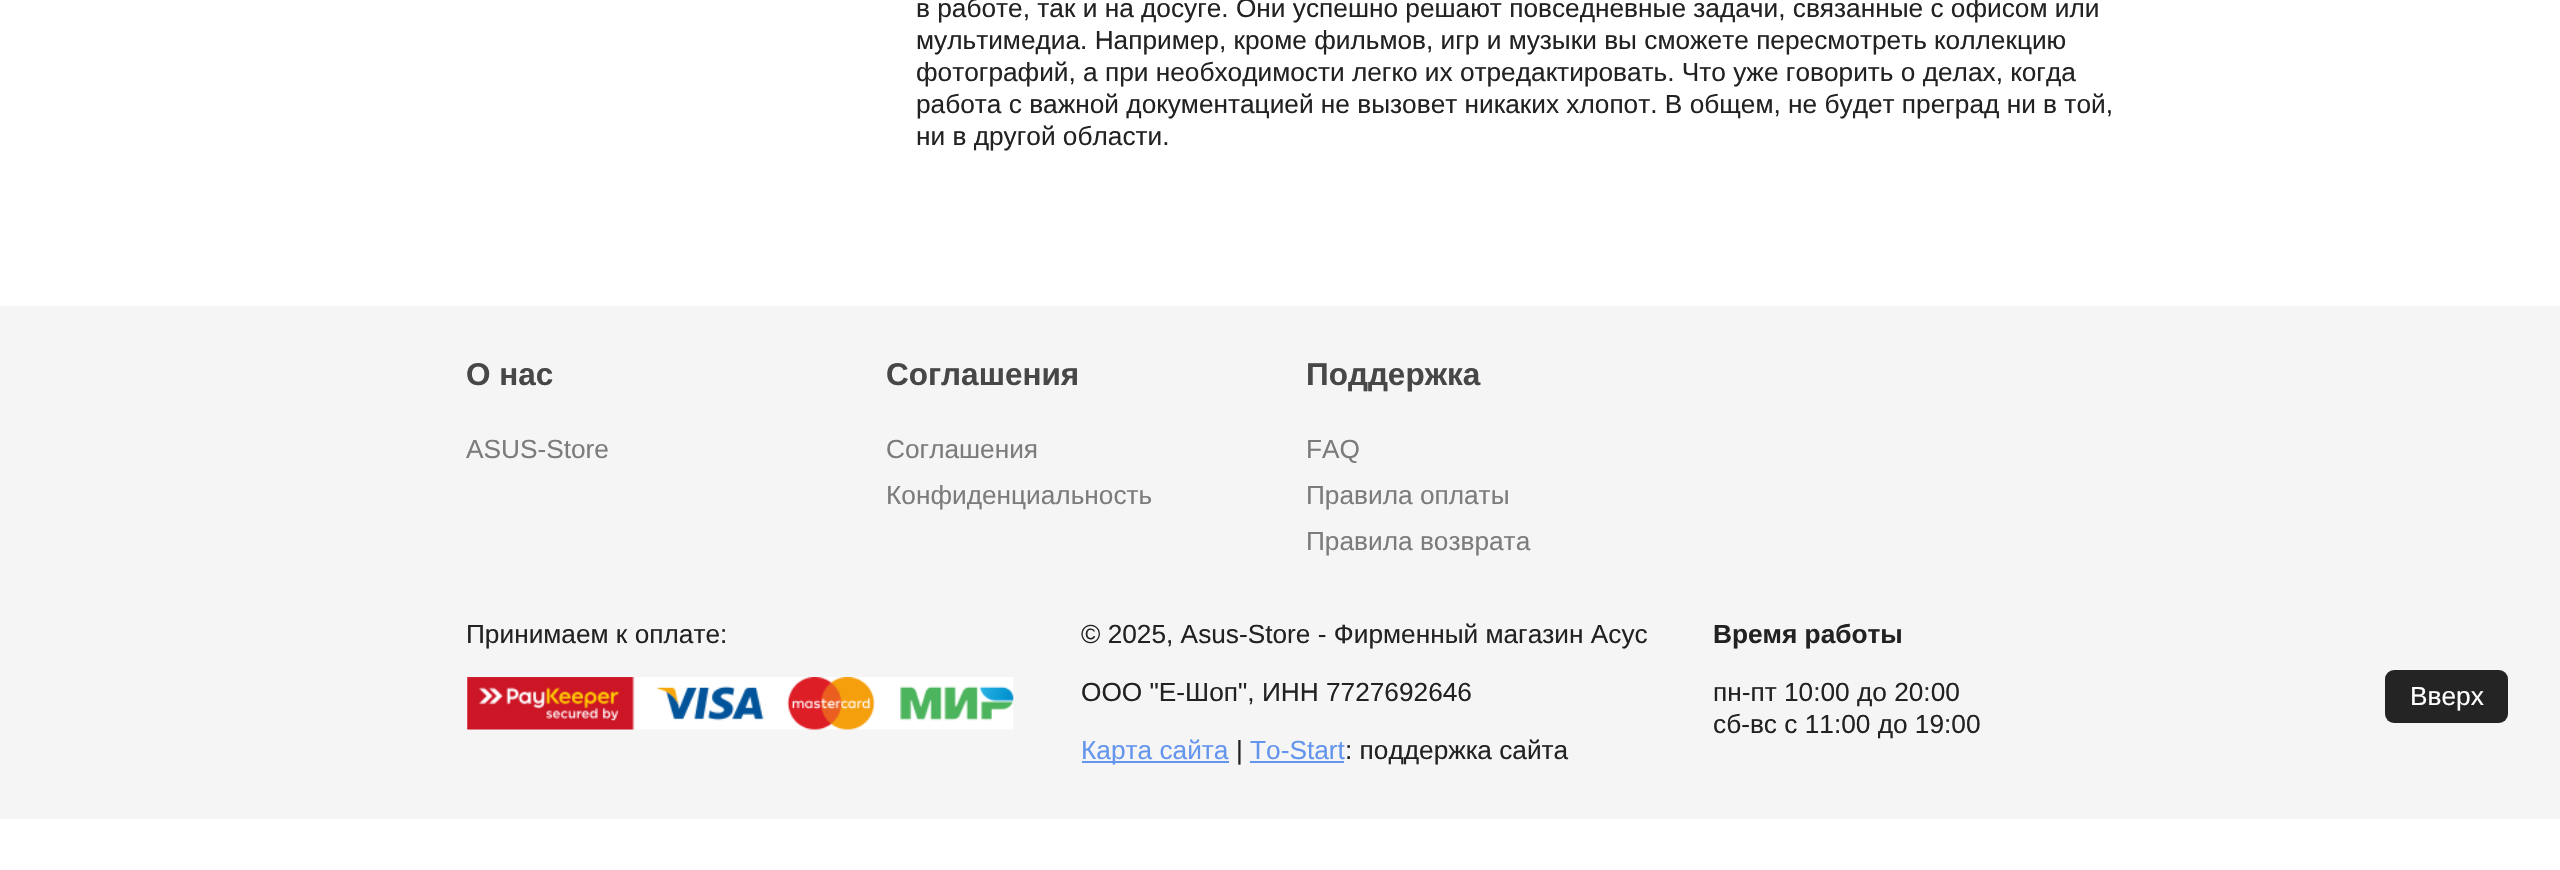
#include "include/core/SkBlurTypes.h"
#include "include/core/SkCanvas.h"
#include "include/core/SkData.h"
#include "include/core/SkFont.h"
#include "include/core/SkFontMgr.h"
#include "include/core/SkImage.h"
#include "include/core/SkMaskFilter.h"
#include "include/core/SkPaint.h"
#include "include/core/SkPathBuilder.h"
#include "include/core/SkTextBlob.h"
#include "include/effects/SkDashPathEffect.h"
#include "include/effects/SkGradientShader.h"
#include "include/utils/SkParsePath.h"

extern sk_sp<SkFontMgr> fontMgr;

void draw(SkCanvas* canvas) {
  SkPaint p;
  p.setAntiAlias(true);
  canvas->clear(SK_ColorWHITE);
  p.setColor(SkColorSetRGB(245, 245, 245));
  canvas->drawRect(SkRect::MakeLTRB(0, 306, 2560, 819), p);
  canvas->drawImageRect(SkImages::DeferredFromEncodedData(SkData::MakeFromFileName("images/1.png")), SkRect::MakeLTRB(467, 677, 1014, 730), SkSamplingOptions());
  p.setColor(SkColorSetRGB(100, 149, 237));
  canvas->drawRect(SkRect::MakeLTRB(1082, 761, 1229, 763), p);
  canvas->drawRect(SkRect::MakeLTRB(1250, 761, 1344, 763), p);
  p.setColor(SkColorSetRGB(36, 36, 36));
  canvas->drawRoundRect(SkRect::MakeLTRB(2385, 670, 2508, 723), 9, 9, p);
  SkFont font1(fontMgr->matchFamilyStyle("Liberation Sans", SkFontStyle::Normal()), 26.25f);
  font1.setSubpixel(true);
  p.setColor(SkColorSetRGB(34, 34, 34));
  canvas->drawString("в работе, так и на досуге. Они успешно решают повседневные задачи, связанные с офисом или", 916, 17, font1, p);
  canvas->drawString("мультимедиа. Например, кроме фильмов, игр и музыки вы сможете пересмотреть коллекцию", 916, 49, font1, p);
  canvas->drawString("фотографий, а при необходимости легко их отредактировать. Что уже говорить о делах, когда", 916, 81, font1, p);
  canvas->drawString("работа с важной документацией не вызовет никаких хлопот. В общем, не будет преград ни в той,", 916, 113, font1, p);
  canvas->drawString("ни в другой области.", 916, 145, font1, p);
  SkFont font2(fontMgr->matchFamilyStyle("Liberation Sans", SkFontStyle::Bold()), 31.5f);
  font2.setSubpixel(true);
  p.setColor(SkColorSetRGB(71, 71, 71));
  canvas->drawString("О нас", 466, 385, font2, p);
  p.setColor(SkColorSetRGB(124, 124, 124));
  canvas->drawString("ASUS-Store", 466, 458, font1, p);
  p.setColor(SkColorSetRGB(71, 71, 71));
  canvas->drawString("Соглашения", 886, 385, font2, p);
  p.setColor(SkColorSetRGB(124, 124, 124));
  canvas->drawString("Соглашения", 886, 458, font1, p);
  canvas->drawString("Конфиденциальность", 886, 504, font1, p);
  p.setColor(SkColorSetRGB(71, 71, 71));
  canvas->drawString("Поддержка", 1306, 385, font2, p);
  p.setColor(SkColorSetRGB(124, 124, 124));
  canvas->drawString("FAQ", 1306, 458, font1, p);
  canvas->drawString("Правила оплаты", 1306, 504, font1, p);
  canvas->drawString("Правила возврата", 1306, 550, font1, p);
  p.setColor(SkColorSetRGB(34, 34, 34));
  canvas->drawString("Принимаем к оплате:", 466, 643, font1, p);
  canvas->drawString("© 2025, Asus-Store - Фирменный магазин Асус", 1081, 643, font1, p);
  canvas->drawString("ООО \"Е-Шоп\", ИНН 7727692646", 1081, 701, font1, p);
  p.setColor(SkColorSetRGB(100, 149, 237));
  canvas->drawString("Карта сайта", 1081, 759, font1, p);
  p.setColor(SkColorSetRGB(34, 34, 34));
  canvas->drawString("|", 1236, 759, font1, p);
  p.setColor(SkColorSetRGB(100, 149, 237));
  canvas->drawString("To-Start", 1250, 759, font1, p);
  p.setColor(SkColorSetRGB(34, 34, 34));
  canvas->drawString(": поддержка сайта", 1345, 759, font1, p);
  SkFont font3(fontMgr->matchFamilyStyle("Liberation Sans", SkFontStyle::Bold()), 26.25f);
  font3.setSubpixel(true);
  canvas->drawString("Время работы", 1713, 643, font3, p);
  canvas->drawString("пн-пт 10:00 до 20:00", 1713, 701, font1, p);
  canvas->drawString("сб-вс с 11:00 до 19:00", 1713, 733, font1, p);
  p.setColor(SK_ColorWHITE);
  canvas->drawString("Вверх", 2410, 705, font1, p);
}
